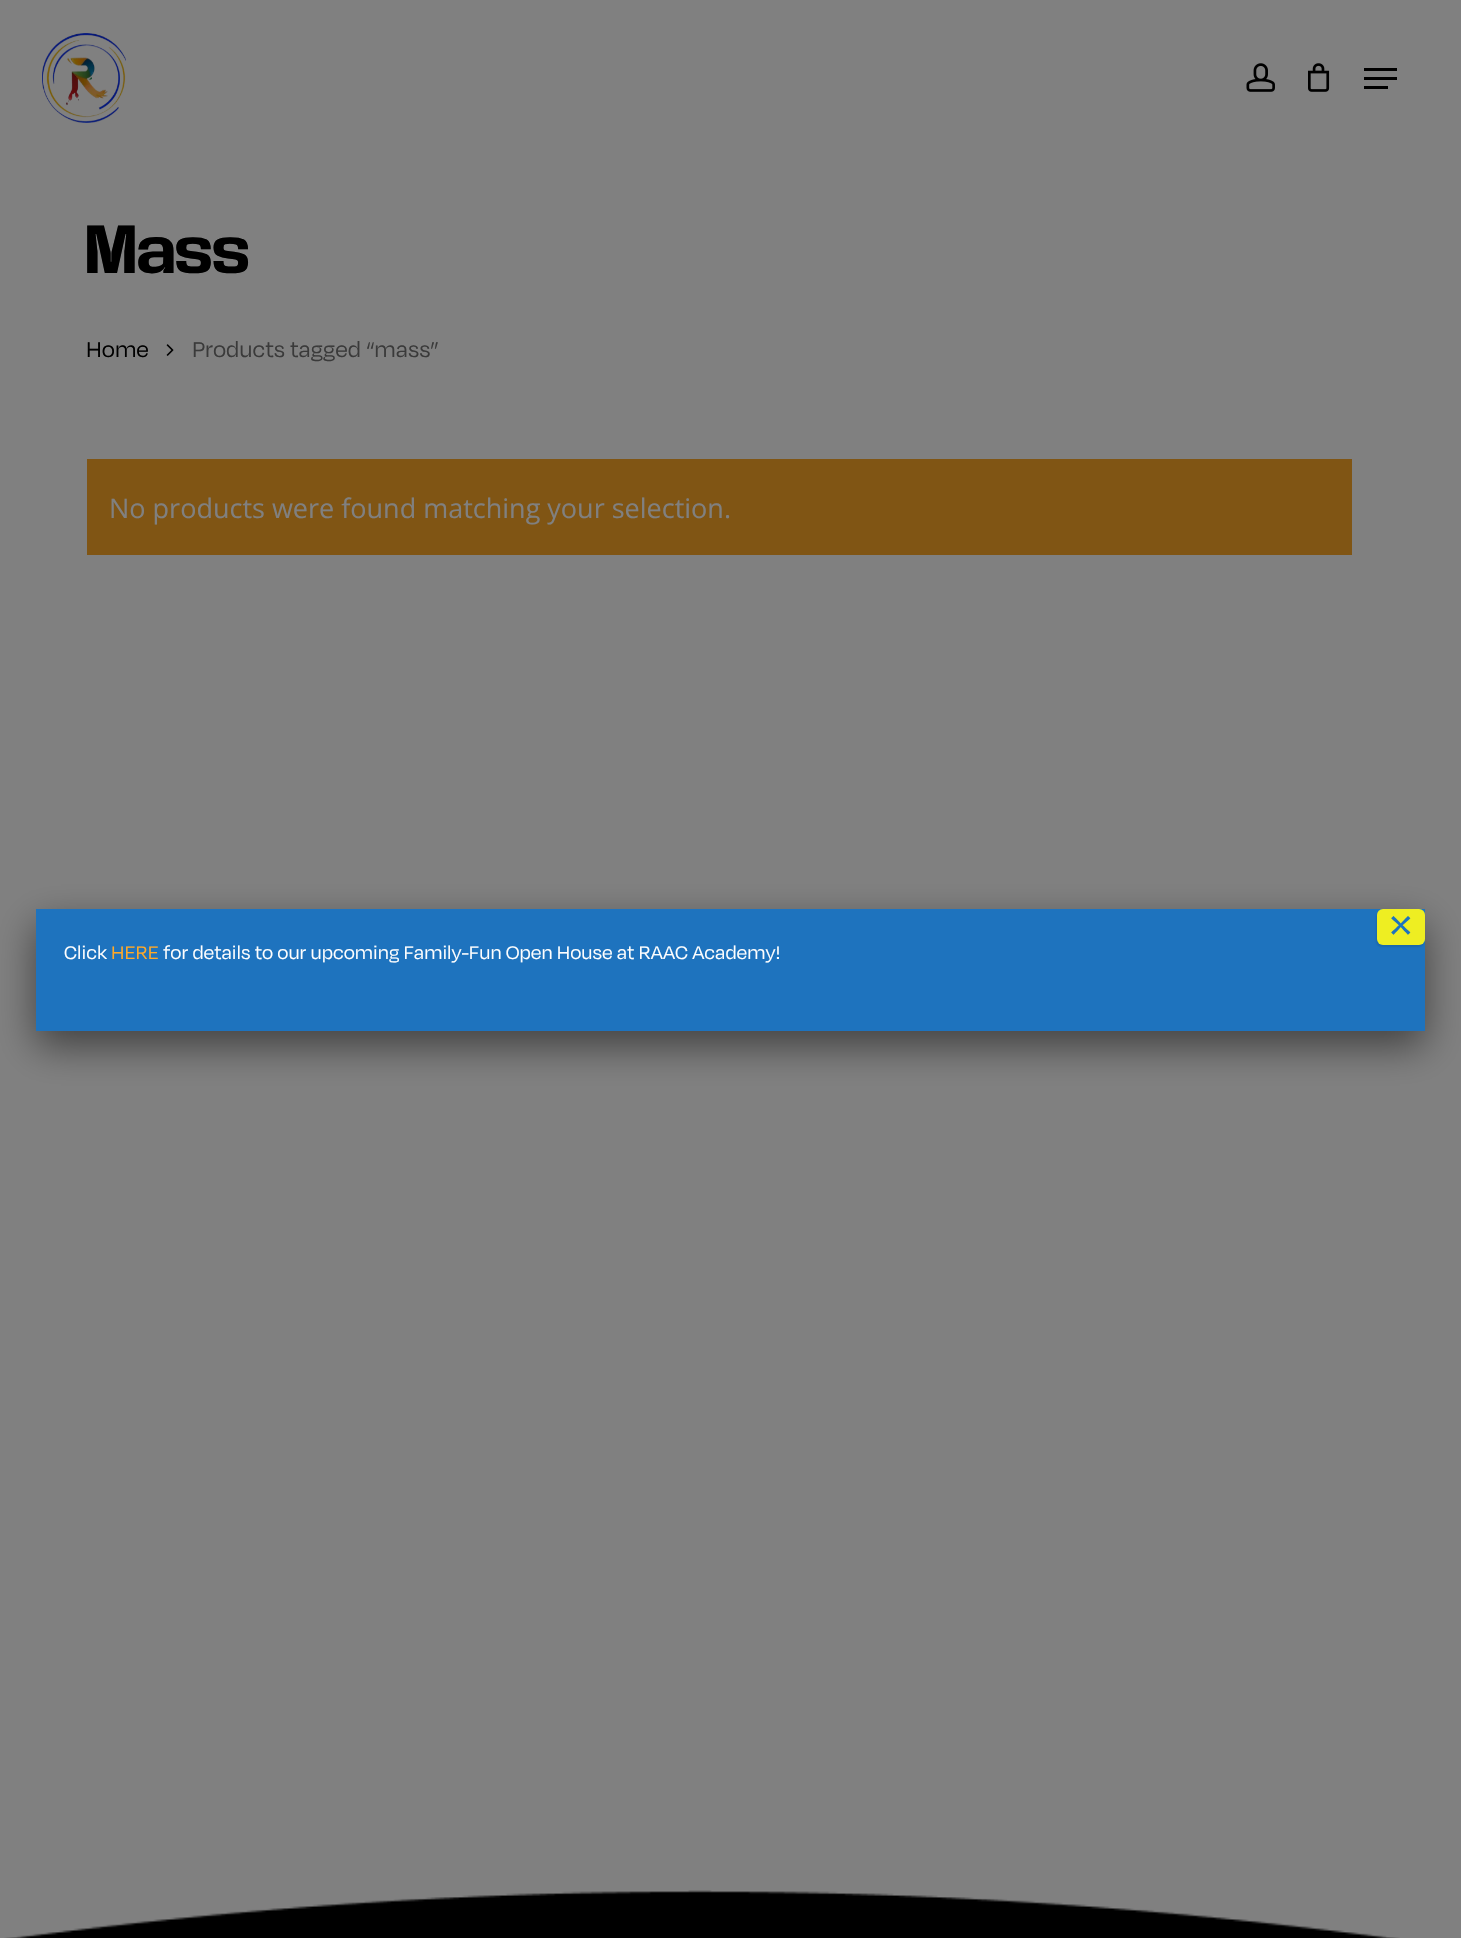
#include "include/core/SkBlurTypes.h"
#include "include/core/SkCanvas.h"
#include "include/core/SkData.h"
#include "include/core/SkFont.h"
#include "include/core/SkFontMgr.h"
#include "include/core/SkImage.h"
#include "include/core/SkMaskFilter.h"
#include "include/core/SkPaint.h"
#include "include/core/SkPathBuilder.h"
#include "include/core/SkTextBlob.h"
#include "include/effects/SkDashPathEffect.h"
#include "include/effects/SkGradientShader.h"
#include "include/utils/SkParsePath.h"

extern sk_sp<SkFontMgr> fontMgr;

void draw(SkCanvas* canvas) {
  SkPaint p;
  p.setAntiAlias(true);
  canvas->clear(SkColorSetRGB(128, 128, 128));
  canvas->drawImageRect(SkImages::DeferredFromEncodedData(SkData::MakeFromFileName("images/1.png")), SkRect::MakeLTRB(42, 33, 126, 123), SkSamplingOptions());
  canvas->drawImageRect(SkImages::DeferredFromEncodedData(SkData::MakeFromFileName("images/2.png")), SkRect::MakeLTRB(1246, 63, 1275, 92), SkSamplingOptions());
  canvas->drawImageRect(SkImages::DeferredFromEncodedData(SkData::MakeFromFileName("images/3.png")), SkRect::MakeLTRB(1308, 63, 1330, 92), SkSamplingOptions());
  p.setColor(SK_ColorBLACK);
  canvas->drawRect(SkRect::MakeLTRB(1364, 68, 1397, 71), p);
  canvas->drawRect(SkRect::MakeLTRB(1364, 86, 1388, 89), p);
  canvas->drawRect(SkRect::MakeLTRB(1364, 77, 1397, 80), p);
  canvas->drawImageRect(SkImages::DeferredFromEncodedData(SkData::MakeFromFileName("images/4.png")), SkRect::MakeLTRB(166, 344, 174, 356), SkSamplingOptions());
  p.setColor(SkColorSetRGB(128, 85, 20));
  canvas->drawRect(SkRect::MakeLTRB(87, 459, 1352, 555), p);
  canvas->drawImageRect(SkImages::DeferredFromEncodedData(SkData::MakeFromFileName("images/5.png")), SkRect::MakeLTRB(4, 1890, 1400, 1938), SkSamplingOptions());
  p.setColor(SkColorSetARGB(128, 2, 2, 2));
  p.setMaskFilter(SkMaskFilter::MakeBlur(kNormal_SkBlurStyle, 19));
  canvas->drawRect(SkRect::MakeLTRB(36, 924, 1425, 1046), p);
  p.setMaskFilter(nullptr);
  p.setColor(SkColorSetRGB(30, 115, 190));
  canvas->drawRect(SkRect::MakeLTRB(36, 909, 1425, 1031), p);
  p.setColor(SkColorSetARGB(26, 2, 2, 2));
  p.setMaskFilter(SkMaskFilter::MakeBlur(kNormal_SkBlurStyle, 1));
  canvas->drawRoundRect(SkRect::MakeLTRB(1376, 911, 1424, 947), 6, 6, p);
  p.setMaskFilter(nullptr);
  p.setColor(SkColorSetRGB(238, 238, 34));
  canvas->drawRoundRect(SkRect::MakeLTRB(1377, 909, 1425, 945), 6, 6, p);
  SkFont font1(fontMgr->matchFamilyStyle("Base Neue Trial", SkFontStyle::Bold()), 60);
  font1.setSubpixel(true);
  p.setColor(SK_ColorBLACK);
  canvas->drawString("Mass", 86, 273, font1, p);
  SkFont font2(fontMgr->matchFamilyStyle("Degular", SkFontStyle::Normal()), 24.75f);
  font2.setSubpixel(true);
  canvas->drawString("Home", 86, 357, font2, p);
  p.setColor(SkColorSetRGB(58, 58, 58));
  canvas->drawString("Products tagged “mass”", 192, 357, font2, p);
  SkFont font3(fontMgr->matchFamilyStyle("Open Sans", SkFontStyle::Normal()), 27);
  font3.setSubpixel(true);
  p.setColor(SkColorSetRGB(128, 128, 128));
  canvas->drawString("No products were found matching your selection.", 109, 518, font3, p);
  SkFont font4(fontMgr->matchFamilyStyle("Degular", SkFontStyle::Normal()), 48);
  font4.setSubpixel(true);
  p.setColor(SkColorSetRGB(30, 115, 190));
  canvas->drawString("×", 1389, 940, font4, p);
  SkFont font5(fontMgr->matchFamilyStyle("Degular", SkFontStyle::Normal()), 21);
  font5.setSubpixel(true);
  p.setColor(SK_ColorWHITE);
  canvas->drawString("Click", 64, 959, font5, p);
  p.setColor(SkColorSetRGB(255, 169, 40));
  canvas->drawString("HERE", 111, 959, font5, p);
  p.setColor(SK_ColorWHITE);
  canvas->drawString("for details to our upcoming Family-Fun Open House at RAAC Academy!", 163, 959, font5, p);
}
